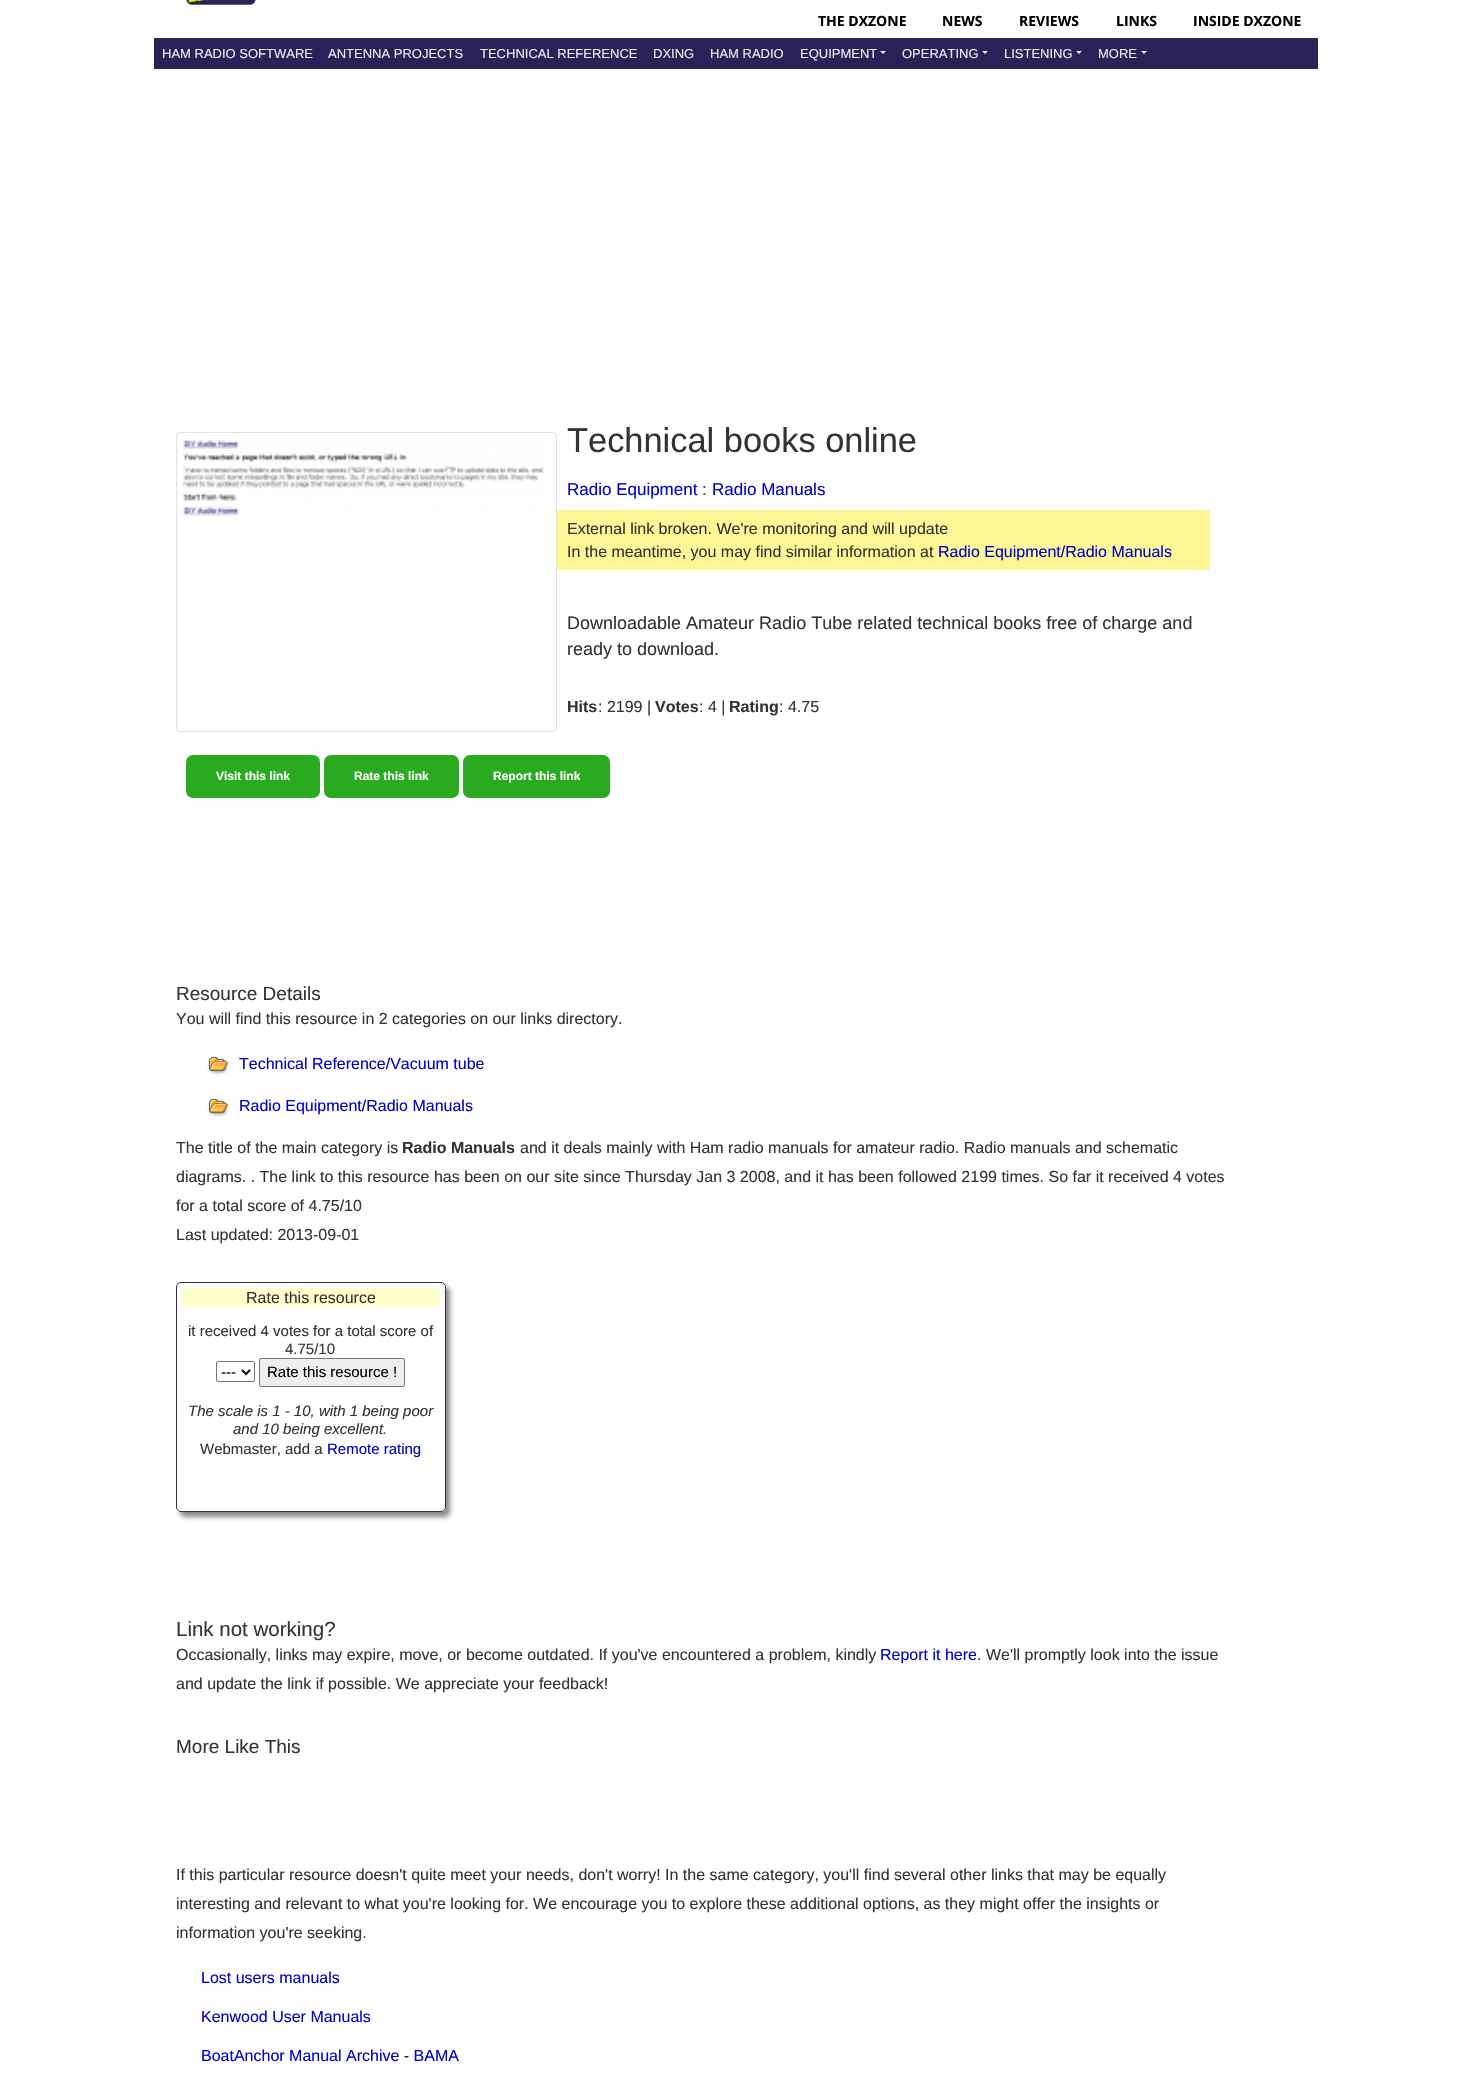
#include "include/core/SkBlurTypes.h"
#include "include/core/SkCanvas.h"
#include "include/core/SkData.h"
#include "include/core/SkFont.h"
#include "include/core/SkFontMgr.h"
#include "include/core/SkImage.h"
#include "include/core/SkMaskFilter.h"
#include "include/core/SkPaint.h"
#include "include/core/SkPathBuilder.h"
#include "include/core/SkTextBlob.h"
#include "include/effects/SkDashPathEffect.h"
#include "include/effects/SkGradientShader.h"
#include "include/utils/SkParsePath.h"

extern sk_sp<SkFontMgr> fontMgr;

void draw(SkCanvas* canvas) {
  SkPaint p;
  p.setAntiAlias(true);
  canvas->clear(SK_ColorWHITE);
  canvas->drawImageRect(SkImages::DeferredFromEncodedData(SkData::MakeFromFileName("images/1.png")), SkRect::MakeLTRB(186, 0, 256, 5), SkSamplingOptions());
  p.setColor(SkColorSetRGB(42, 33, 86));
  canvas->drawRect(SkRect::MakeLTRB(154, 38, 1318, 69), p);
  p.setColor(SkColorSetRGB(234, 233, 238));
  canvas->drawPath(SkPathBuilder().moveTo(880, 51).lineTo(886, 51).lineTo(883, 54).close().detach(), p);
  canvas->drawPath(SkPathBuilder().moveTo(982, 51).lineTo(988, 51).lineTo(985, 54).close().detach(), p);
  canvas->drawPath(SkPathBuilder().moveTo(1076, 51).lineTo(1082, 51).lineTo(1079, 54).close().detach(), p);
  canvas->drawPath(SkPathBuilder().moveTo(1141, 51).lineTo(1147, 51).lineTo(1144, 54).close().detach(), p);
  p.setColor(SkColorSetRGB(254, 247, 150));
  canvas->drawRect(SkRect::MakeLTRB(557, 510, 1210, 570), p);
  p.setColor(SkColorSetRGB(42, 170, 33));
  canvas->drawRoundRect(SkRect::MakeLTRB(186, 755, 320, 798), 7, 7, p);
  canvas->drawRoundRect(SkRect::MakeLTRB(324, 755, 459, 798), 7, 7, p);
  canvas->drawRoundRect(SkRect::MakeLTRB(463, 755, 610, 798), 7, 7, p);
  p.setStyle(SkPaint::kStroke_Style);
  p.setStrokeWidth(1);
  p.setColor(SkColorSetRGB(222, 226, 230));
  canvas->drawRoundRect(SkRect::MakeLTRB(176.5f, 432.5f, 556.5f, 731.5f), 3.5f, 3.5f, p);
  canvas->drawImageRect(SkImages::DeferredFromEncodedData(SkData::MakeFromFileName("images/2.png")), SkRect::MakeLTRB(181, 439, 544, 516), SkSamplingOptions());
  canvas->drawImageRect(SkImages::DeferredFromEncodedData(SkData::MakeFromFileName("images/3.png")), SkRect::MakeLTRB(207, 1056, 229, 1075), SkSamplingOptions());
  canvas->drawImageRect(SkImages::DeferredFromEncodedData(SkData::MakeFromFileName("images/3.png")), SkRect::MakeLTRB(207, 1098, 229, 1117), SkSamplingOptions());
  canvas->save();
  canvas->clipPath(SkPathBuilder(SkPathFillType::kEvenOdd).moveTo(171, 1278).lineTo(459, 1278).lineTo(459, 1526).lineTo(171, 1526).close().moveTo(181, 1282).lineTo(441, 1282).cubicTo(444, 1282, 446, 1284, 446, 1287).lineTo(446, 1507).cubicTo(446, 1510, 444, 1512, 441, 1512).lineTo(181, 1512).cubicTo(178, 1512, 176, 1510, 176, 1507).lineTo(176, 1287).cubicTo(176, 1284, 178, 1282, 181, 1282).close().detach(), true);
  p.setStyle(SkPaint::kFill_Style);
  p.setColor(SkColorSetRGB(136, 136, 136));
  p.setMaskFilter(SkMaskFilter::MakeBlur(kNormal_SkBlurStyle, 2.5f));
  canvas->drawRoundRect(SkRect::MakeLTRB(180, 1287, 450, 1517), 5, 5, p);
  p.setMaskFilter(nullptr);
  canvas->restore();
  p.setStyle(SkPaint::kStroke_Style);
  p.setColor(SkColorSetRGB(51, 51, 51));
  canvas->drawRoundRect(SkRect::MakeLTRB(176.5f, 1282.5f, 445.5f, 1511.5f), 4.5f, 4.5f, p);
  p.setStyle(SkPaint::kFill_Style);
  p.setColor(SkColorSetRGB(255, 255, 204));
  canvas->drawRect(SkRect::MakeLTRB(182, 1288, 440, 1307), p);
  p.setStyle(SkPaint::kStroke_Style);
  p.setColor(SkColorSetRGB(118, 118, 118));
  canvas->drawRoundRect(SkRect::MakeLTRB(216.5f, 1361.5f, 254.5f, 1381.5f), 1.5f, 1.5f, p);
  p.setStrokeWidth(2);
  p.setColor(SK_ColorBLACK);
  canvas->drawPath(SkPathBuilder().moveTo(242, 1370).lineTo(246, 1374).lineTo(250, 1370).detach(), p);
  p.setStyle(SkPaint::kFill_Style);
  p.setColor(SkColorSetRGB(239, 239, 239));
  canvas->drawRoundRect(SkRect::MakeLTRB(259.5f, 1358.5f, 404.5f, 1386.5f), 1.5f, 1.5f, p);
  p.setStyle(SkPaint::kStroke_Style);
  p.setStrokeWidth(1);
  p.setColor(SkColorSetRGB(118, 118, 118));
  canvas->drawRoundRect(SkRect::MakeLTRB(259.5f, 1358.5f, 404.5f, 1386.5f), 1.5f, 1.5f, p);
  SkFont font1(fontMgr->matchFamilyStyle("Open Sans", SkFontStyle::Bold()), 14);
  font1.setSubpixel(true);
  p.setStyle(SkPaint::kFill_Style);
  p.setColor(SK_ColorBLACK);
  canvas->drawString("THE DXZONE", 818, 26, font1, p);
  canvas->drawString("NEWS", 942, 26, font1, p);
  canvas->drawString("REVIEWS", 1019, 26, font1, p);
  canvas->drawString("LINKS", 1116, 26, font1, p);
  canvas->drawString("INSIDE DXZONE", 1193, 26, font1, p);
  SkFont font2(fontMgr->matchFamilyStyle("Liberation Sans", SkFontStyle::Normal()), 13);
  font2.setSubpixel(true);
  p.setColor(SkColorSetRGB(234, 233, 238));
  canvas->drawString("HAM RADIO SOFTWARE", 162, 58, font2, p);
  canvas->drawString("ANTENNA PROJECTS", 328, 58, font2, p);
  canvas->drawString("TECHNICAL REFERENCE", 480, 58, font2, p);
  canvas->drawString("DXING", 653, 58, font2, p);
  canvas->drawString("HAM RADIO", 710, 58, font2, p);
  canvas->drawString("EQUIPMENT", 800, 58, font2, p);
  canvas->drawString("OPERATING", 902, 58, font2, p);
  canvas->drawString("LISTENING", 1004, 58, font2, p);
  canvas->drawString("MORE", 1098, 58, font2, p);
  SkFont font3(fontMgr->matchFamilyStyle("Liberation Sans", SkFontStyle::Normal()), 34.4f);
  font3.setSubpixel(true);
  p.setColor(SkColorSetRGB(51, 51, 51));
  canvas->drawString("Technical books online", 567, 452, font3, p);
  SkFont font4(fontMgr->matchFamilyStyle("Liberation Sans", SkFontStyle::Normal()), 17);
  font4.setSubpixel(true);
  p.setColor(SkColorSetRGB(0, 2, 200));
  canvas->drawString("Radio Equipment", 567, 495, font4, p);
  p.setColor(SkColorSetRGB(51, 51, 51));
  canvas->drawString(":", 702, 495, font4, p);
  p.setColor(SkColorSetRGB(0, 2, 200));
  canvas->drawString("Radio Manuals", 712, 495, font4, p);
  SkFont font5(fontMgr->matchFamilyStyle("Liberation Sans", SkFontStyle::Normal()), 16);
  font5.setSubpixel(true);
  p.setColor(SkColorSetRGB(51, 51, 51));
  canvas->drawString("External link broken. We're monitoring and will update", 567, 534, font5, p);
  canvas->drawString("In the meantime, you may find similar information at", 567, 557, font5, p);
  p.setColor(SkColorSetRGB(0, 2, 200));
  canvas->drawString("Radio Equipment/Radio Manuals", 938, 557, font5, p);
  SkFont font6(fontMgr->matchFamilyStyle("Liberation Sans", SkFontStyle::Normal()), 18);
  font6.setSubpixel(true);
  p.setColor(SkColorSetRGB(51, 51, 51));
  canvas->drawString("Downloadable Amateur Radio Tube related technical books free of charge and", 567, 629, font6, p);
  canvas->drawString("ready to download.", 567, 655, font6, p);
  SkFont font7(fontMgr->matchFamilyStyle("Liberation Sans", SkFontStyle::Bold()), 16);
  font7.setSubpixel(true);
  canvas->drawString("Hits", 567, 712, font7, p);
  canvas->drawString(": 2199 |", 598, 712, font5, p);
  canvas->drawString("Votes", 655, 712, font7, p);
  canvas->drawString(": 4 |", 699, 712, font5, p);
  canvas->drawString("Rating", 729, 712, font7, p);
  canvas->drawString(": 4.75", 779, 712, font5, p);
  SkFont font8(fontMgr->matchFamilyStyle("Liberation Sans", SkFontStyle::Bold()), 12);
  font8.setSubpixel(true);
  p.setColor(SK_ColorWHITE);
  canvas->drawString("Visit this link", 216, 780, font8, p);
  canvas->drawString("Rate this link", 354, 780, font8, p);
  canvas->drawString("Report this link", 493, 780, font8, p);
  SkFont font9(fontMgr->matchFamilyStyle("Liberation Sans", SkFontStyle::Normal()), 19);
  font9.setSubpixel(true);
  p.setColor(SkColorSetRGB(51, 51, 51));
  canvas->drawString("Resource Details", 176, 1000, font9, p);
  canvas->drawString("You will find this resource in 2 categories on our links directory.", 176, 1024, font5, p);
  p.setColor(SkColorSetRGB(0, 2, 200));
  canvas->drawString("Technical Reference/Vacuum tube", 239, 1069, font5, p);
  canvas->drawString("Radio Equipment/Radio Manuals", 239, 1111, font5, p);
  p.setColor(SkColorSetRGB(51, 51, 51));
  canvas->drawString("The title of the main category is", 176, 1153, font5, p);
  canvas->drawString("Radio Manuals", 402, 1153, font7, p);
  canvas->drawString("and it deals mainly with Ham radio manuals for amateur radio. Radio manuals and schematic", 520, 1153, font5, p);
  canvas->drawString("diagrams. . The link to this resource has been on our site since Thursday Jan 3 2008, and it has been followed 2199 times. So far it received 4 votes", 176, 1182, font5, p);
  canvas->drawString("for a total score of 4.75/10", 176, 1211, font5, p);
  canvas->drawString("Last updated: 2013-09-01", 176, 1240, font5, p);
  canvas->drawString("Rate this resource", 246, 1303, font5, p);
  SkFont font10(fontMgr->matchFamilyStyle("Liberation Sans", SkFontStyle::Normal()), 15);
  font10.setSubpixel(true);
  canvas->drawString("it received 4 votes for a total score of", 188, 1336, font10, p);
  canvas->drawString("4.75/10", 285, 1354, font10, p);
  p.setColor(SK_ColorBLACK);
  canvas->drawString("---", 221, 1377, font10, p);
  canvas->drawString("Rate this resource !", 267, 1377, font10, p);
  SkFont font11(fontMgr->matchFamilyStyle("Liberation Sans", SkFontStyle::Italic()), 15);
  font11.setSubpixel(true);
  p.setColor(SkColorSetRGB(51, 51, 51));
  canvas->drawString("The scale is 1 - 10, with 1 being poor", 188, 1416, font11, p);
  canvas->drawString("and 10 being excellent.", 233, 1434, font11, p);
  canvas->drawString("Webmaster, add a", 200, 1454, font10, p);
  p.setColor(SkColorSetRGB(0, 2, 200));
  canvas->drawString("Remote rating", 327, 1454, font10, p);
  SkFont font12(fontMgr->matchFamilyStyle("Liberation Sans", SkFontStyle::Normal()), 20.5f);
  font12.setSubpixel(true);
  p.setColor(SkColorSetRGB(51, 51, 51));
  canvas->drawString("Link not working?", 176, 1636, font12, p);
  canvas->drawString("Occasionally, links may expire, move, or become outdated. If you've encountered a problem, kindly", 176, 1660, font5, p);
  p.setColor(SkColorSetRGB(0, 2, 200));
  canvas->drawString("Report it here", 880, 1660, font5, p);
  p.setColor(SkColorSetRGB(51, 51, 51));
  canvas->drawString(". We'll promptly look into the issue", 977, 1660, font5, p);
  canvas->drawString("and update the link if possible. We appreciate your feedback!", 176, 1689, font5, p);
  canvas->drawString("More Like This", 176, 1753, font9, p);
  canvas->drawString("If this particular resource doesn't quite meet your needs, don't worry! In the same category, you'll find several other links that may be equally", 176, 1880, font5, p);
  canvas->drawString("interesting and relevant to what you're looking for. We encourage you to explore these additional options, as they might offer the insights or", 176, 1909, font5, p);
  canvas->drawString("information you're seeking.", 176, 1938, font5, p);
  p.setColor(SkColorSetRGB(0, 2, 200));
  canvas->drawString("Lost users manuals", 201, 1983, font5, p);
  canvas->drawString("Kenwood User Manuals", 201, 2022, font5, p);
  canvas->drawString("BoatAnchor Manual Archive - BAMA", 201, 2061, font5, p);
}
